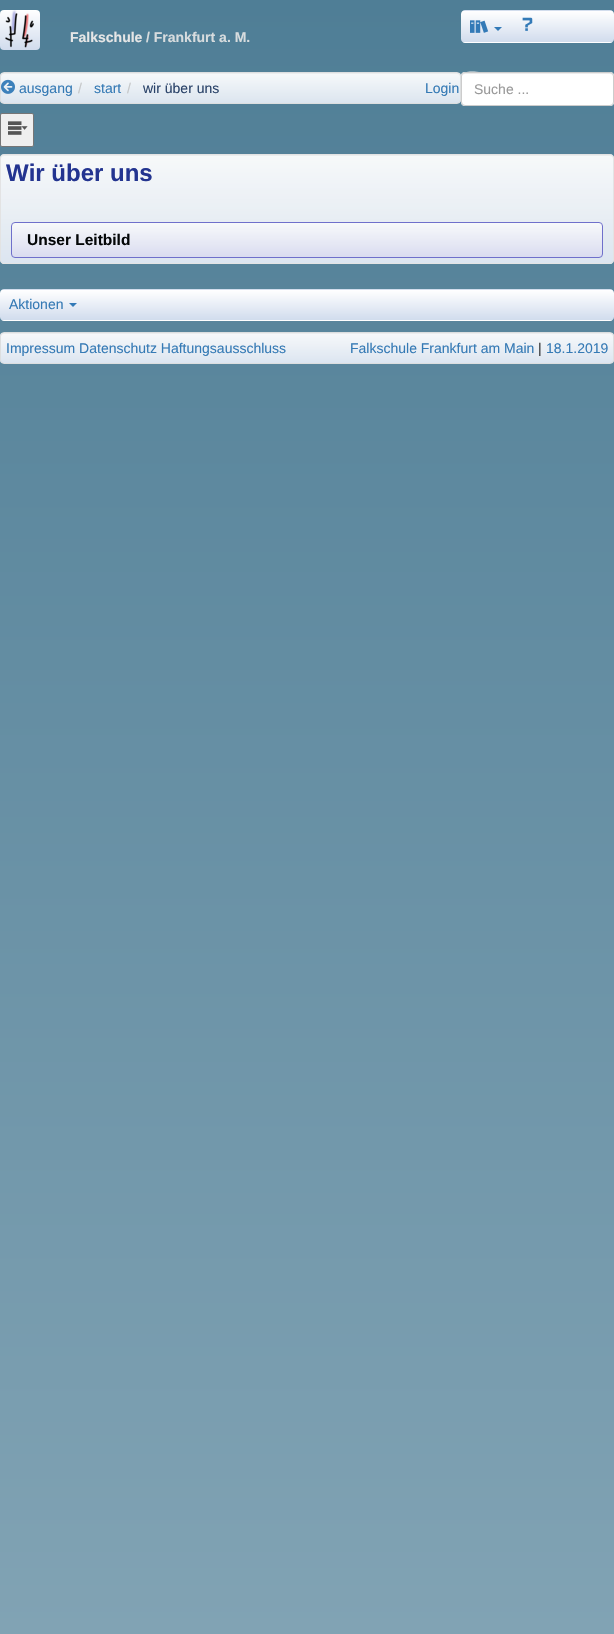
#include "include/core/SkBlurTypes.h"
#include "include/core/SkCanvas.h"
#include "include/core/SkData.h"
#include "include/core/SkFont.h"
#include "include/core/SkFontMgr.h"
#include "include/core/SkImage.h"
#include "include/core/SkMaskFilter.h"
#include "include/core/SkPaint.h"
#include "include/core/SkPathBuilder.h"
#include "include/core/SkTextBlob.h"
#include "include/effects/SkDashPathEffect.h"
#include "include/effects/SkGradientShader.h"
#include "include/utils/SkParsePath.h"

extern sk_sp<SkFontMgr> fontMgr;

void draw(SkCanvas* canvas) {
  SkPaint p;
  p.setAntiAlias(true);
  canvas->clear(SK_ColorWHITE);
  {
    const SkColor colors[] = {SkColorSetRGB(129, 163, 180), SkColorSetRGB(79, 126, 150)};
    const float stops[] = {0, 1};
    const SkPoint ends[] = {{0, 1634}, {0, 0}};
    p.setShader(SkGradientShader::MakeLinear(ends, colors, stops, 2, SkTileMode::kClamp));
    p.setAlpha(255);
  }
  canvas->drawRect(SkRect::MakeLTRB(0, 0, 614, 1634), p);
  {
    const SkColor colors[] = {SkColorSetRGB(209, 220, 237), SK_ColorWHITE};
    const float stops[] = {0, 1};
    const SkPoint ends[] = {{0, 50}, {0, 10}};
    p.setShader(SkGradientShader::MakeLinear(ends, colors, stops, 2, SkTileMode::kClamp));
    p.setAlpha(255);
  }
  canvas->drawRoundRect(SkRect::MakeLTRB(0, 10, 40, 50), 4, 4, p);
  canvas->drawImageRect(SkImages::DeferredFromEncodedData(SkData::MakeFromFileName("images/1.png")), SkRect::MakeLTRB(5, 10, 34, 48), SkSamplingOptions());
  canvas->save();
  canvas->clipPath(SkPathBuilder().moveTo(465, 10).lineTo(610, 10).cubicTo(612, 10, 614, 12, 614, 14).lineTo(614, 39).cubicTo(614, 41, 612, 43, 610, 43).lineTo(465, 43).cubicTo(463, 43, 461, 41, 461, 39).lineTo(461, 14).cubicTo(461, 12, 463, 10, 465, 10).close().detach(), true);
  {
    const SkColor colors[] = {SkColorSetRGB(209, 220, 237), SK_ColorWHITE};
    const float stops[] = {0, 1};
    const SkPoint ends[] = {{462, 11}, {462, -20}};
    p.setShader(SkGradientShader::MakeLinear(ends, colors, stops, 2, SkTileMode::kClamp));
    p.setAlpha(255);
  }
  canvas->drawRect(SkRect::MakeLTRB(461, 10, 614, 11), p);
  {
    const SkColor colors[] = {SkColorSetRGB(209, 220, 237), SK_ColorWHITE};
    const float stops[] = {0, 1};
    const SkPoint ends[] = {{462, 42}, {462, 11}};
    p.setShader(SkGradientShader::MakeLinear(ends, colors, stops, 2, SkTileMode::kClamp));
    p.setAlpha(255);
  }
  canvas->drawRect(SkRect::MakeLTRB(461, 11, 614, 42), p);
  {
    const SkColor colors[] = {SkColorSetRGB(209, 220, 237), SK_ColorWHITE};
    const float stops[] = {0, 1};
    const SkPoint ends[] = {{462, 73}, {462, 42}};
    p.setShader(SkGradientShader::MakeLinear(ends, colors, stops, 2, SkTileMode::kClamp));
    p.setAlpha(255);
  }
  canvas->drawRect(SkRect::MakeLTRB(461, 42, 614, 43), p);
  canvas->restore();
  canvas->drawImageRect(SkImages::DeferredFromEncodedData(SkData::MakeFromFileName("images/2.png")), SkRect::MakeLTRB(470, 20, 489, 33), SkSamplingOptions());
  p.setShader(nullptr);
  p.setColor(SkColorSetRGB(51, 122, 183));
  canvas->drawPath(SkPathBuilder().moveTo(494, 27).lineTo(502, 27).lineTo(498, 31).close().detach(), p);
  canvas->drawImageRect(SkImages::DeferredFromEncodedData(SkData::MakeFromFileName("images/3.png")), SkRect::MakeLTRB(522, 17, 533, 31), SkSamplingOptions());
  canvas->save();
  canvas->clipPath(SkPathBuilder().moveTo(4, 72).lineTo(457, 72).cubicTo(459, 72, 461, 74, 461, 76).lineTo(461, 100).cubicTo(461, 102, 459, 104, 457, 104).lineTo(4, 104).cubicTo(2, 104, 0, 102, 0, 100).lineTo(0, 76).cubicTo(0, 74, 2, 72, 4, 72).close().detach(), true);
  {
    const SkColor colors[] = {SkColorSetRGB(220, 229, 239), SkColorSetRGB(246, 249, 250)};
    const float stops[] = {0, 1};
    const SkPoint ends[] = {{1, 103}, {1, 73}};
    p.setShader(SkGradientShader::MakeLinear(ends, colors, stops, 2, SkTileMode::kClamp));
    p.setAlpha(255);
  }
  canvas->drawRect(SkRect::MakeLTRB(0, 73, 461, 103), p);
  canvas->restore();
  p.setShader(nullptr);
  p.setColor(SkColorSetRGB(234, 237, 238));
  canvas->drawPath(SkPathBuilder().moveTo(4, 74).lineTo(457, 74).cubicTo(459, 74, 460, 75, 460, 77).cubicTo(460, 75, 459, 73, 457, 73).lineTo(3, 73).lineTo(1, 75).lineTo(1, 77).cubicTo(1, 75, 2, 74, 4, 74).close().detach(), p);
  p.setStyle(SkPaint::kStroke_Style);
  p.setStrokeWidth(1);
  p.setColor(SkColorSetRGB(220, 222, 223));
  canvas->drawRoundRect(SkRect::MakeLTRB(0.5f, 72.5f, 460.5f, 103.5f), 3.5f, 3.5f, p);
  canvas->drawImageRect(SkImages::DeferredFromEncodedData(SkData::MakeFromFileName("images/4.png")), SkRect::MakeLTRB(1, 79, 15, 94), SkSamplingOptions());
  p.setStyle(SkPaint::kFill_Style);
  p.setColor(SK_ColorWHITE);
  canvas->drawRoundRect(SkRect::MakeLTRB(461, 72, 614, 106), 4, 4, p);
  p.setColor(SkColorSetRGB(236, 236, 236));
  canvas->drawPath(SkPathBuilder().moveTo(465, 74).lineTo(610, 74).cubicTo(612, 74, 613, 75, 613, 77).cubicTo(613, 75, 613, 74, 611, 73).lineTo(489, 73).cubicTo(482, 73, 462, 68, 462, 77).cubicTo(462, 75, 463, 74, 465, 74).close().detach(), p);
  p.setStyle(SkPaint::kStroke_Style);
  p.setColor(SkColorSetRGB(204, 204, 204));
  canvas->drawRoundRect(SkRect::MakeLTRB(461.5f, 72.5f, 613.5f, 105.5f), 3.5f, 3.5f, p);
  p.setStyle(SkPaint::kFill_Style);
  p.setColor(SkColorSetRGB(239, 239, 239));
  canvas->drawRoundRect(SkRect::MakeLTRB(0.5f, 113.5f, 33.5f, 146.5f), 1.5f, 1.5f, p);
  p.setStyle(SkPaint::kStroke_Style);
  p.setColor(SkColorSetRGB(118, 118, 118));
  canvas->drawRoundRect(SkRect::MakeLTRB(0.5f, 113.5f, 33.5f, 146.5f), 1.5f, 1.5f, p);
  canvas->drawImageRect(SkImages::DeferredFromEncodedData(SkData::MakeFromFileName("images/5.png")), SkRect::MakeLTRB(8, 121, 28, 135), SkSamplingOptions());
  canvas->save();
  canvas->clipPath(SkPathBuilder().moveTo(4, 154).lineTo(610, 154).cubicTo(612, 154, 614, 156, 614, 158).lineTo(614, 260).cubicTo(614, 262, 612, 264, 610, 264).lineTo(4, 264).cubicTo(2, 264, 0, 262, 0, 260).lineTo(0, 158).cubicTo(0, 156, 2, 154, 4, 154).close().detach(), true);
  p.setStyle(SkPaint::kFill_Style);
  {
    const SkColor colors[] = {SkColorSetRGB(220, 229, 239), SkColorSetRGB(246, 249, 250)};
    const float stops[] = {0, 1};
    const SkPoint ends[] = {{1, 155}, {1, 47}};
    p.setShader(SkGradientShader::MakeLinear(ends, colors, stops, 2, SkTileMode::kClamp));
    p.setAlpha(255);
  }
  canvas->drawRect(SkRect::MakeLTRB(0, 154, 614, 155), p);
  {
    const SkColor colors[] = {SkColorSetARGB(242, 227, 234, 244), SkColorSetARGB(242, 255, 255, 255)};
    const float stops[] = {0, 1};
    const SkPoint ends[] = {{1, 263}, {1, 155}};
    p.setShader(SkGradientShader::MakeLinear(ends, colors, stops, 2, SkTileMode::kClamp));
    p.setAlpha(255);
  }
  canvas->drawRect(SkRect::MakeLTRB(0, 155, 614, 263), p);
  {
    const SkColor colors[] = {SkColorSetRGB(220, 229, 240), SkColorSetRGB(247, 249, 250)};
    const float stops[] = {0, 1};
    const SkPoint ends[] = {{1, 371}, {1, 263}};
    p.setShader(SkGradientShader::MakeLinear(ends, colors, stops, 2, SkTileMode::kClamp));
    p.setAlpha(255);
  }
  canvas->drawRect(SkRect::MakeLTRB(0, 263, 614, 264), p);
  canvas->restore();
  p.setShader(nullptr);
  p.setColor(SkColorSetRGB(234, 237, 238));
  canvas->drawPath(SkPathBuilder().moveTo(4, 156).lineTo(610, 156).cubicTo(612, 156, 613, 157, 613, 159).lineTo(613, 158).cubicTo(613, 156, 612, 155, 610, 155).lineTo(4, 155).cubicTo(2, 155, 1, 156, 1, 158).lineTo(1, 159).cubicTo(1, 157, 2, 156, 4, 156).close().detach(), p);
  p.setStyle(SkPaint::kStroke_Style);
  p.setColor(SkColorSetARGB(242, 227, 227, 227));
  canvas->drawRoundRect(SkRect::MakeLTRB(0.5f, 154.5f, 613.5f, 263.5f), 3.5f, 3.5f, p);
  canvas->save();
  canvas->clipPath(SkPathBuilder().moveTo(15, 222).lineTo(599, 222).cubicTo(601, 222, 603, 224, 603, 226).lineTo(603, 254).cubicTo(603, 256, 601, 258, 599, 258).lineTo(15, 258).cubicTo(13, 258, 11, 256, 11, 254).lineTo(11, 226).cubicTo(11, 224, 13, 222, 15, 222).close().detach(), true);
  p.setStyle(SkPaint::kFill_Style);
  {
    const SkColor colors[] = {SkColorSetRGB(218, 220, 240), SkColorSetRGB(247, 249, 250)};
    const float stops[] = {0, 1};
    const SkPoint ends[] = {{12, 257}, {12, 223}};
    p.setShader(SkGradientShader::MakeLinear(ends, colors, stops, 2, SkTileMode::kClamp));
    p.setAlpha(255);
  }
  canvas->drawRect(SkRect::MakeLTRB(11, 223, 603, 257), p);
  canvas->restore();
  p.setStyle(SkPaint::kStroke_Style);
  p.setShader(nullptr);
  p.setColor(SkColorSetRGB(111, 112, 203));
  canvas->drawRoundRect(SkRect::MakeLTRB(11.5f, 222.5f, 602.5f, 257.5f), 3.5f, 3.5f, p);
  canvas->save();
  canvas->clipPath(SkPathBuilder().moveTo(4, 289).lineTo(610, 289).cubicTo(612, 289, 614, 291, 614, 293).lineTo(614, 317).cubicTo(614, 319, 612, 321, 610, 321).lineTo(4, 321).cubicTo(2, 321, 0, 319, 0, 317).lineTo(0, 293).cubicTo(0, 291, 2, 289, 4, 289).close().detach(), true);
  p.setStyle(SkPaint::kFill_Style);
  {
    const SkColor colors[] = {SkColorSetRGB(209, 220, 237), SK_ColorWHITE};
    const float stops[] = {0, 1};
    const SkPoint ends[] = {{1, 290}, {1, 260}};
    p.setShader(SkGradientShader::MakeLinear(ends, colors, stops, 2, SkTileMode::kClamp));
    p.setAlpha(255);
  }
  canvas->drawRect(SkRect::MakeLTRB(0, 289, 614, 290), p);
  {
    const SkColor colors[] = {SkColorSetRGB(209, 220, 237), SK_ColorWHITE};
    const float stops[] = {0, 1};
    const SkPoint ends[] = {{1, 320}, {1, 290}};
    p.setShader(SkGradientShader::MakeLinear(ends, colors, stops, 2, SkTileMode::kClamp));
    p.setAlpha(255);
  }
  canvas->drawRect(SkRect::MakeLTRB(0, 290, 614, 320), p);
  {
    const SkColor colors[] = {SkColorSetRGB(209, 220, 237), SK_ColorWHITE};
    const float stops[] = {0, 1};
    const SkPoint ends[] = {{1, 350}, {1, 320}};
    p.setShader(SkGradientShader::MakeLinear(ends, colors, stops, 2, SkTileMode::kClamp));
    p.setAlpha(255);
  }
  canvas->drawRect(SkRect::MakeLTRB(0, 320, 614, 321), p);
  canvas->restore();
  p.setShader(nullptr);
  p.setColor(SkColorSetRGB(51, 122, 183));
  canvas->drawPath(SkPathBuilder().moveTo(69, 303).lineTo(77, 303).lineTo(73, 307).close().detach(), p);
  canvas->save();
  canvas->clipPath(SkPathBuilder().moveTo(4, 332).lineTo(610, 332).cubicTo(612, 332, 614, 334, 614, 336).lineTo(614, 360).cubicTo(614, 362, 612, 364, 610, 364).lineTo(4, 364).cubicTo(2, 364, 0, 362, 0, 360).lineTo(0, 336).cubicTo(0, 334, 2, 332, 4, 332).close().detach(), true);
  {
    const SkColor colors[] = {SkColorSetRGB(220, 229, 240), SkColorSetRGB(247, 249, 250)};
    const float stops[] = {0, 1};
    const SkPoint ends[] = {{1, 363}, {1, 333}};
    p.setShader(SkGradientShader::MakeLinear(ends, colors, stops, 2, SkTileMode::kClamp));
    p.setAlpha(255);
  }
  canvas->drawRect(SkRect::MakeLTRB(0, 333, 614, 363), p);
  canvas->restore();
  p.setShader(nullptr);
  p.setColor(SkColorSetRGB(235, 237, 238));
  canvas->drawPath(SkPathBuilder().moveTo(4, 334).lineTo(610, 334).cubicTo(612, 334, 613, 335, 613, 337).lineTo(613, 336).cubicTo(613, 334, 612, 333, 610, 333).lineTo(4, 333).cubicTo(2, 333, 1, 334, 1, 336).lineTo(1, 337).cubicTo(1, 335, 2, 334, 4, 334).close().detach(), p);
  p.setStyle(SkPaint::kStroke_Style);
  p.setColor(SkColorSetRGB(220, 222, 223));
  canvas->drawRoundRect(SkRect::MakeLTRB(0.5f, 332.5f, 613.5f, 363.5f), 3.5f, 3.5f, p);
  SkFont font1(fontMgr->matchFamilyStyle("Liberation Sans", SkFontStyle::Bold()), 14);
  font1.setSubpixel(true);
  p.setStyle(SkPaint::kFill_Style);
  p.setColor(SkColorSetRGB(230, 230, 230));
  canvas->drawString("Falkschule", 70, 42, font1, p);
  p.setColor(SkColorSetRGB(215, 220, 222));
  canvas->drawString("/ Frankfurt a. M.", 146, 42, font1, p);
  SkFont font2(fontMgr->matchFamilyStyle("Liberation Sans", SkFontStyle::Normal()), 14);
  font2.setSubpixel(true);
  p.setColor(SkColorSetRGB(53, 122, 181));
  canvas->drawString("ausgang", 19, 93, font2, p);
  p.setColor(SkColorSetRGB(198, 200, 201));
  canvas->drawString("/", 78, 93, font2, p);
  p.setColor(SkColorSetRGB(53, 122, 181));
  canvas->drawString("start", 94, 93, font2, p);
  p.setColor(SkColorSetRGB(198, 200, 201));
  canvas->drawString("/", 127, 93, font2, p);
  p.setColor(SkColorSetRGB(41, 66, 104));
  canvas->drawString("wir über uns", 143, 93, font2, p);
  p.setColor(SkColorSetRGB(53, 122, 181));
  canvas->drawString("Login", 425, 93, font2, p);
  p.setColor(SkColorSetRGB(153, 153, 153));
  canvas->drawString("Suche ...", 474, 94, font2, p);
  SkFont font3(fontMgr->matchFamilyStyle("Liberation Sans", SkFontStyle::Bold()), 24);
  font3.setSubpixel(true);
  p.setColor(SkColorSetRGB(35, 52, 144));
  canvas->drawString("Wir über uns", 6, 181, font3, p);
  SkFont font4(fontMgr->matchFamilyStyle("Liberation Sans", SkFontStyle::Bold()), 15.5f);
  font4.setSubpixel(true);
  p.setColor(SkColorSetRGB(4, 7, 8));
  canvas->drawString("Unser Leitbild", 27, 245, font4, p);
  p.setColor(SkColorSetRGB(53, 122, 181));
  canvas->drawString("Aktionen", 9, 309, font2, p);
  canvas->drawString("Impressum Datenschutz Haftungsausschluss", 6, 353, font2, p);
  canvas->drawString("Falkschule Frankfurt am Main", 350, 353, font2, p);
  p.setColor(SkColorSetRGB(53, 55, 56));
  canvas->drawString("|", 538, 353, font2, p);
  p.setColor(SkColorSetRGB(53, 122, 181));
  canvas->drawString("18.1.2019", 546, 353, font2, p);
}
